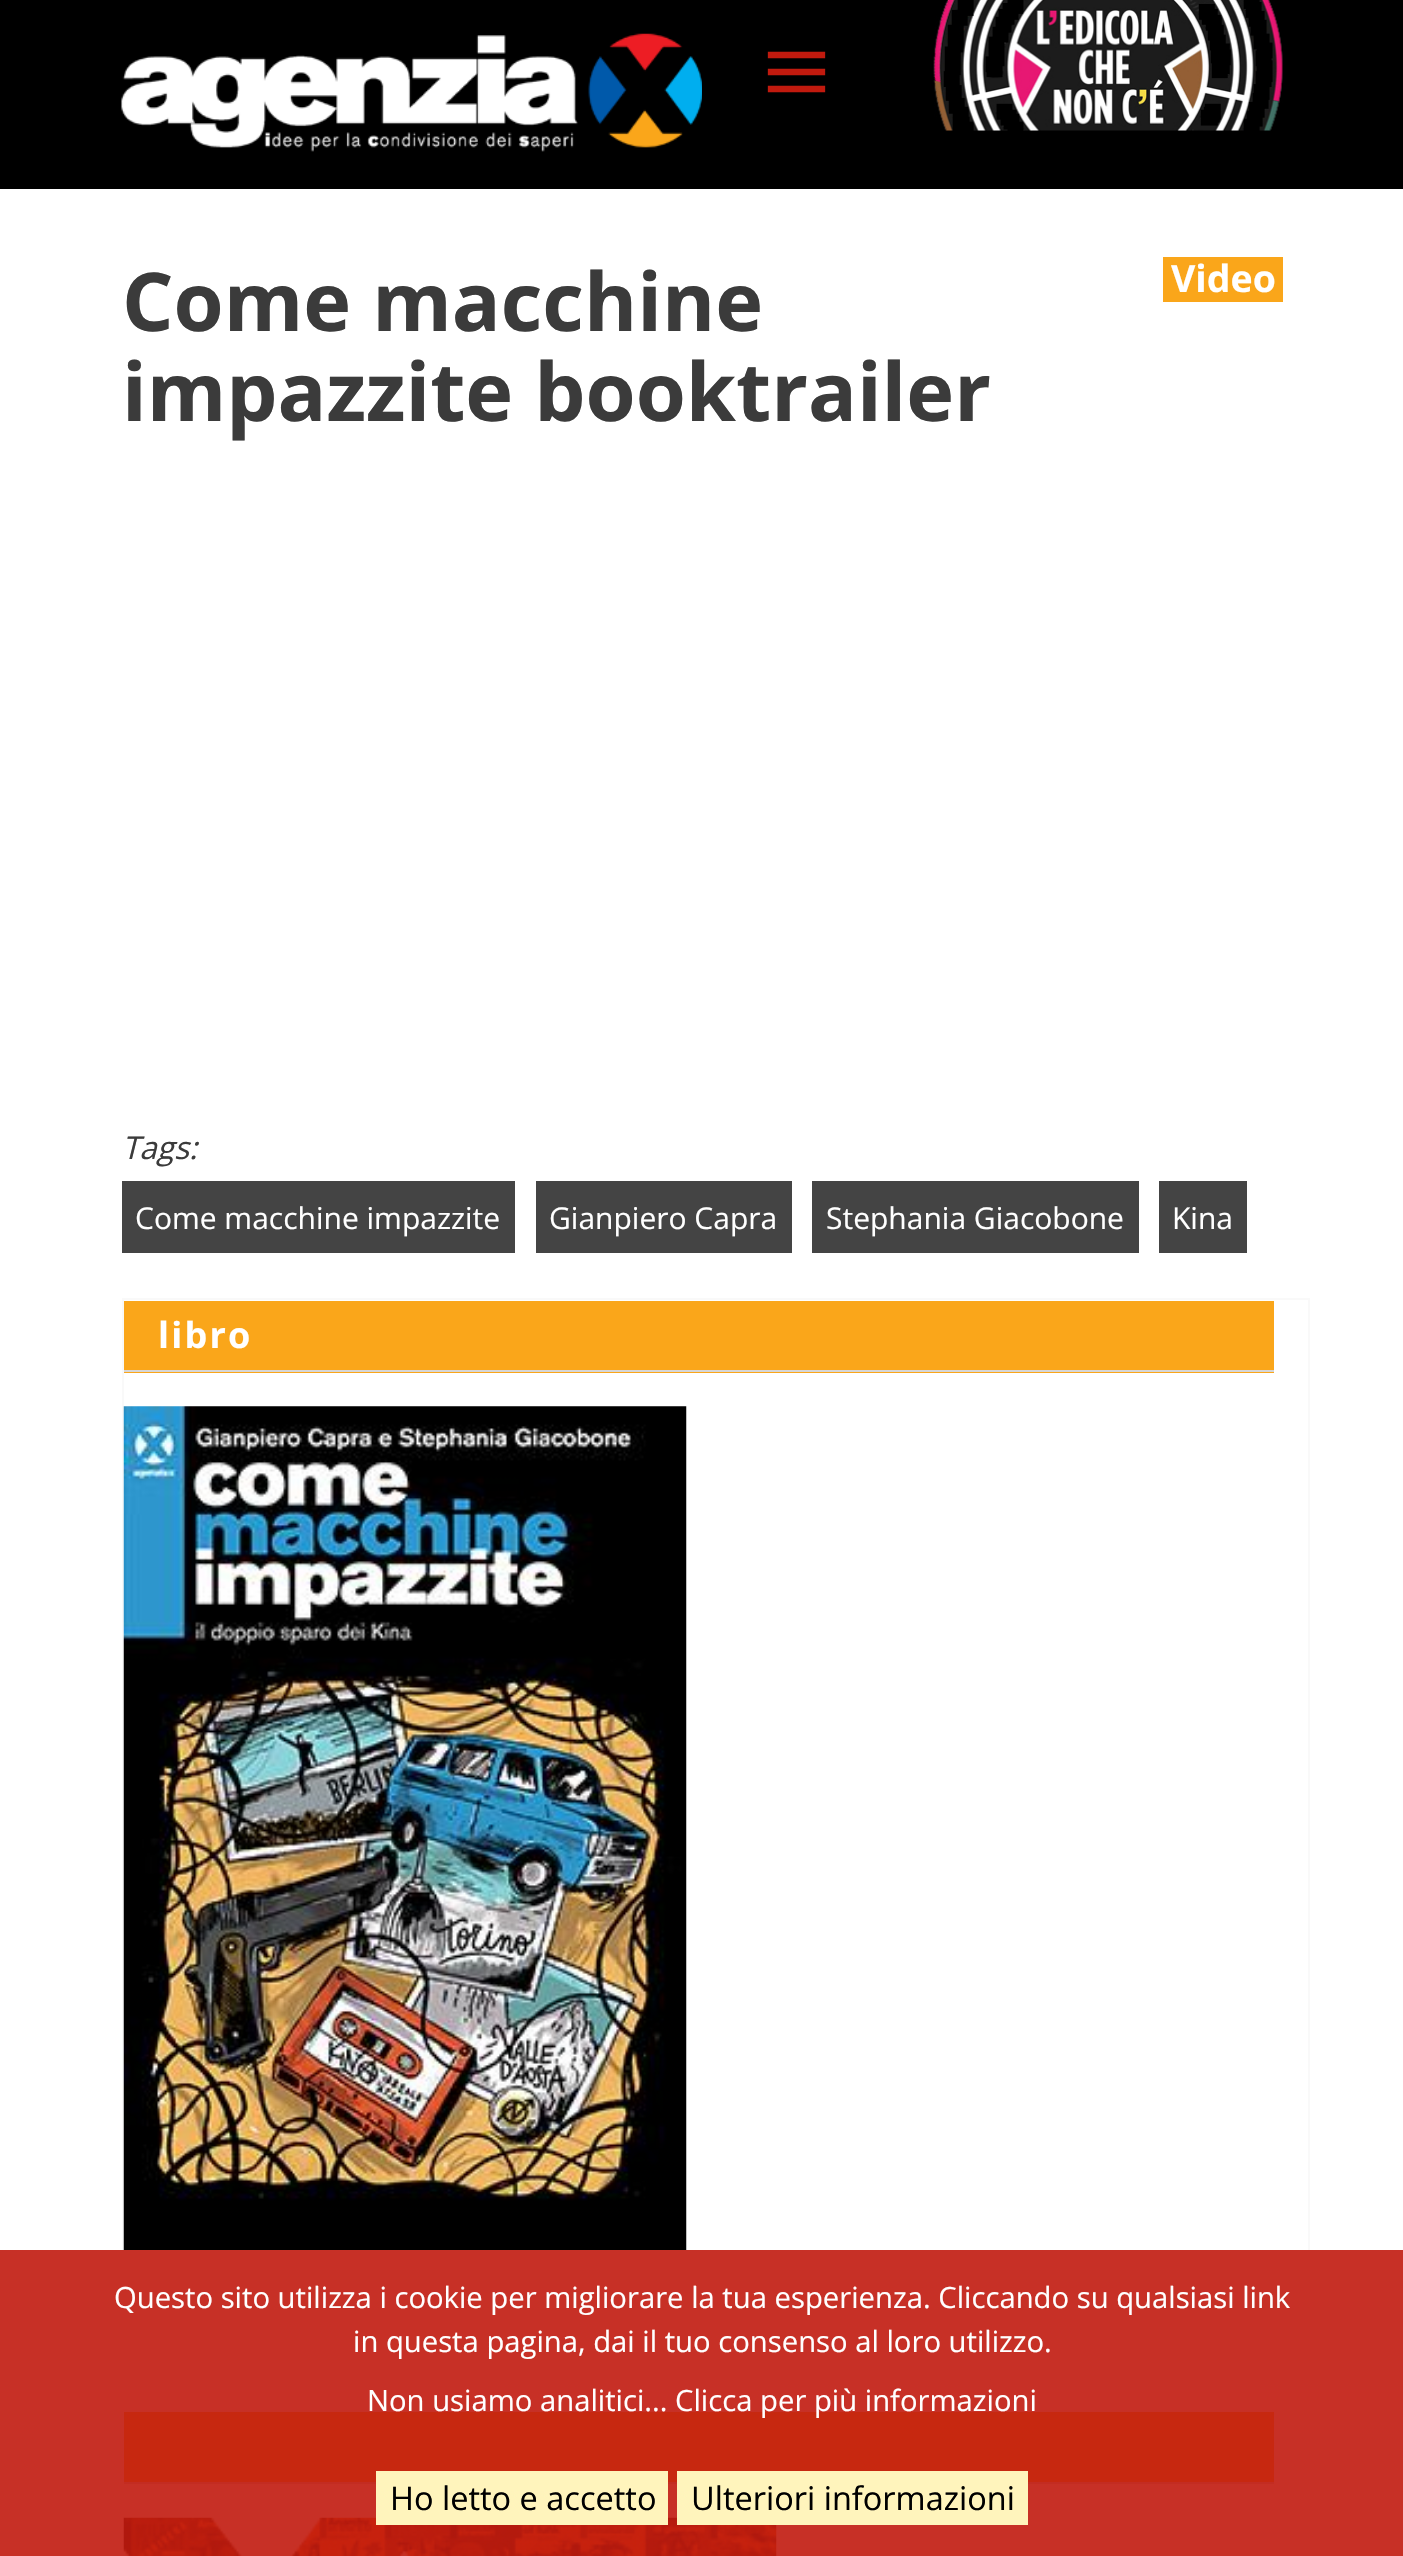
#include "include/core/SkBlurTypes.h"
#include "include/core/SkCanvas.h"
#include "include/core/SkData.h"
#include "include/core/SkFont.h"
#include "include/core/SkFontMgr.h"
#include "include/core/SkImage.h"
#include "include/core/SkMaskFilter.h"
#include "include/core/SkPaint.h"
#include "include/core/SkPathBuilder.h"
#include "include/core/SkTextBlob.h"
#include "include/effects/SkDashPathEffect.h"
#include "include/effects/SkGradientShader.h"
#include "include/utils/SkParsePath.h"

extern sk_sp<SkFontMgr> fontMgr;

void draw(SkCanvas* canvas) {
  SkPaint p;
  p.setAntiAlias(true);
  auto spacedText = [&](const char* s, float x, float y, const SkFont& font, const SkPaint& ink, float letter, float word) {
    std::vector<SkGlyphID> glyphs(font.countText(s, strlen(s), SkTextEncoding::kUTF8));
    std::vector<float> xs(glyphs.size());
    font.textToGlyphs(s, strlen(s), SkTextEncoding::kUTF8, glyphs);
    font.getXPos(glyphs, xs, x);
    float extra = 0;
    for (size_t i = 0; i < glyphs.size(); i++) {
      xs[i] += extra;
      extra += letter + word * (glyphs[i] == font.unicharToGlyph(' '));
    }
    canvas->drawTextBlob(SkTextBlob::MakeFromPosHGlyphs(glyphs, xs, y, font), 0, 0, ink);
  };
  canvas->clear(SK_ColorWHITE);
  p.setColor(SK_ColorBLACK);
  canvas->drawRect(SkRect::MakeLTRB(0, 0, 1403, 189), p);
  canvas->drawImageRect(SkImages::DeferredFromEncodedData(SkData::MakeFromFileName("images/1.png")), SkRect::MakeLTRB(121, 33, 702, 152), SkSamplingOptions());
  p.setStyle(SkPaint::kStroke_Style);
  p.setStrokeWidth(6.3f);
  p.setStrokeCap(SkPaint::kSquare_Cap);
  p.setColor(SkColorSetRGB(193, 26, 14));
  canvas->drawPath(SkPathBuilder().moveTo(771, 55).lineTo(822, 55).moveTo(771, 72).lineTo(822, 72).moveTo(771, 89).lineTo(822, 89).detach(), p);
  canvas->drawImageRect(SkImages::DeferredFromEncodedData(SkData::MakeFromFileName("images/2.png")), SkRect::MakeLTRB(933, 0, 1283, 131), SkSamplingOptions());
  p.setStyle(SkPaint::kFill_Style);
  p.setColor(SkColorSetRGB(250, 166, 26));
  canvas->drawRect(SkRect::MakeLTRB(1163, 257, 1283, 302), p);
  p.setColor(SkColorSetRGB(68, 68, 68));
  canvas->drawRect(SkRect::MakeLTRB(122, 1181, 515, 1253), p);
  canvas->drawRect(SkRect::MakeLTRB(536, 1181, 792, 1253), p);
  canvas->drawRect(SkRect::MakeLTRB(812, 1181, 1139, 1253), p);
  canvas->drawRect(SkRect::MakeLTRB(1159, 1181, 1247, 1253), p);
  p.setStyle(SkPaint::kStroke_Style);
  p.setStrokeWidth(2);
  p.setStrokeCap(SkPaint::kButt_Cap);
  p.setColor(SkColorSetRGB(249, 249, 249));
  canvas->drawRect(SkRect::MakeLTRB(123, 1299, 1309, 2364), p);
  p.setStyle(SkPaint::kFill_Style);
  p.setColor(SkColorSetRGB(250, 166, 26));
  canvas->drawRect(SkRect::MakeLTRB(124, 1301, 1274, 1373), p);
  p.setColor(SkColorSetRGB(214, 214, 214));
  canvas->drawRect(SkRect::MakeLTRB(124, 1370, 1274, 1372), p);
  canvas->drawImageRect(SkImages::DeferredFromEncodedData(SkData::MakeFromFileName("images/3.png")), SkRect::MakeLTRB(123, 1406, 687, 2250), SkSamplingOptions());
  p.setStyle(SkPaint::kStroke_Style);
  p.setColor(SkColorSetRGB(249, 249, 249));
  canvas->drawRect(SkRect::MakeLTRB(123, 2411, 1309, 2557), p);
  p.setStyle(SkPaint::kFill_Style);
  p.setColor(SkColorSetRGB(250, 166, 26));
  canvas->drawRect(SkRect::MakeLTRB(124, 2412, 1274, 2482), p);
  p.setColor(SkColorSetRGB(214, 214, 214));
  canvas->drawRect(SkRect::MakeLTRB(124, 2482, 1274, 2484), p);
  canvas->drawImageRect(SkImages::DeferredFromEncodedData(SkData::MakeFromFileName("images/4.png")), SkRect::MakeLTRB(123, 2517, 777, 2556), SkSamplingOptions());
  p.setColor(SkColorSetARGB(230, 193, 26, 14));
  canvas->drawRect(SkRect::MakeLTRB(0, 2250, 1403, 2556), p);
  p.setColor(SkColorSetRGB(255, 244, 188));
  canvas->drawRect(SkRect::MakeLTRB(376, 2471, 668, 2525), p);
  canvas->drawRect(SkRect::MakeLTRB(677, 2471, 1028, 2525), p);
  SkFont font1(fontMgr->matchFamilyStyle("Open Sans", SkFontStyle::Bold()), 81);
  font1.setSubpixel(true);
  p.setColor(SkColorSetRGB(59, 59, 59));
  canvas->drawString("Come macchine", 122, 331, font1, p);
  canvas->drawString("impazzite booktrailer", 122, 421, font1, p);
  SkFont font2(fontMgr->matchFamilyStyle("Open Sans", SkFontStyle::Bold()), 37.5f);
  font2.setSubpixel(true);
  p.setColor(SK_ColorWHITE);
  canvas->drawString("Video", 1171, 292, font2, p);
  SkFont font3(fontMgr->matchFamilyStyle("Open Sans", SkFontStyle::Italic()), 31.5f);
  font3.setSubpixel(true);
  p.setColor(SkColorSetRGB(59, 59, 59));
  canvas->drawString("Tags:", 122, 1159, font3, p);
  SkFont font4(fontMgr->matchFamilyStyle("Open Sans", SkFontStyle::Normal()), 30);
  font4.setSubpixel(true);
  p.setColor(SK_ColorWHITE);
  canvas->drawString("Come macchine impazzite", 135, 1229, font4, p);
  canvas->drawString("Gianpiero Capra", 549, 1229, font4, p);
  canvas->drawString("Stephania Giacobone", 826, 1229, font4, p);
  canvas->drawString("Kina", 1172, 1229, font4, p);
  SkFont font5(fontMgr->matchFamilyStyle("Open Sans", SkFontStyle::Bold()), 36);
  font5.setSubpixel(true);
  spacedText("libro", 158, 1348, font5, p, 2.25f, 0);
  SkFont font6(fontMgr->matchFamilyStyle("Open Sans", SkFontStyle::Normal()), 29.25f);
  font6.setSubpixel(true);
  canvas->drawString("Questo sito utilizza i cookie per migliorare la tua esperienza. Cliccando su qualsiasi link", 114, 2308, font6, p);
  canvas->drawString("in questa pagina, dai il tuo consenso al loro utilizzo.", 353, 2352, font6, p);
  canvas->drawString("Non usiamo analitici... Clicca per più informazioni", 367, 2411, font6, p);
  SkFont font7(fontMgr->matchFamilyStyle("Open Sans", SkFontStyle::Normal()), 32.5f);
  font7.setSubpixel(true);
  p.setColor(SK_ColorBLACK);
  canvas->drawString("Ho letto e accetto", 390, 2510, font7, p);
  canvas->drawString("Ulteriori informazioni", 691, 2510, font7, p);
}
